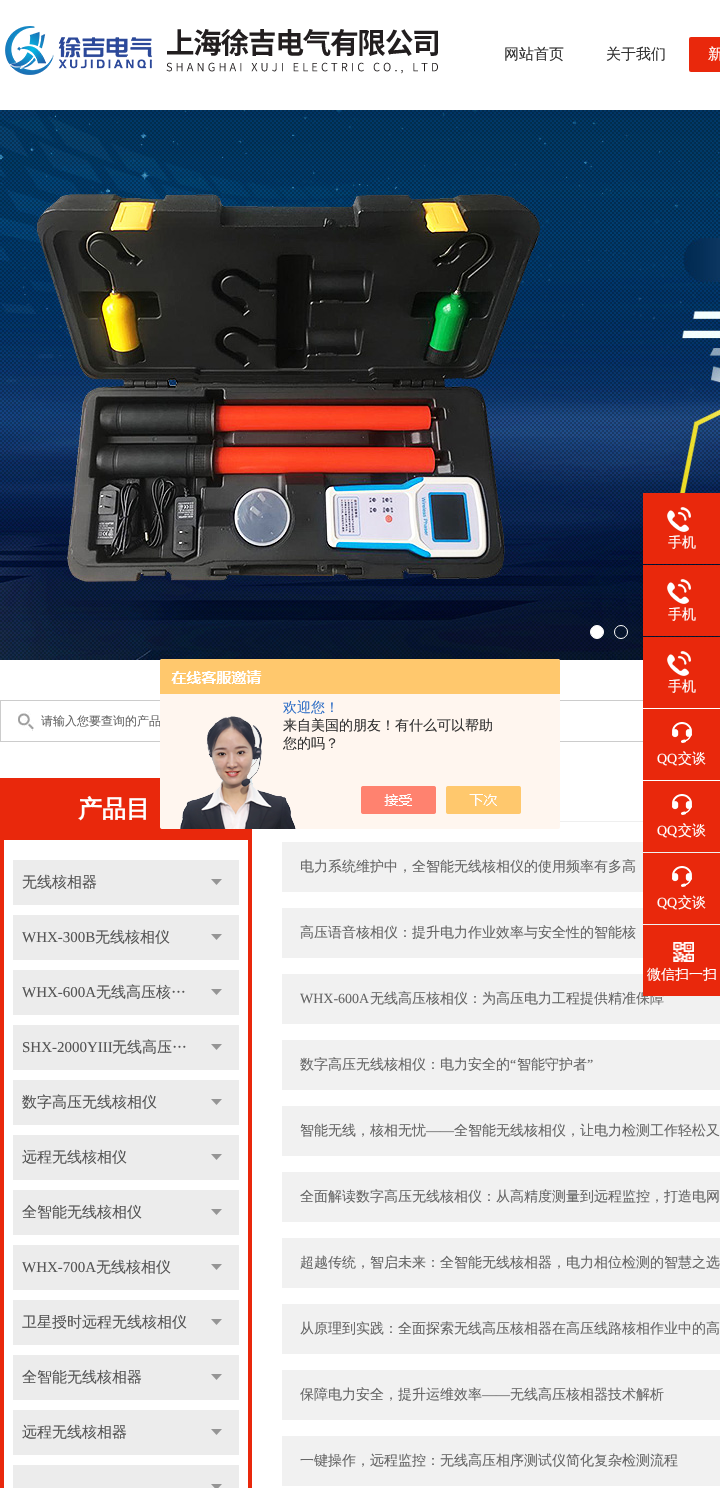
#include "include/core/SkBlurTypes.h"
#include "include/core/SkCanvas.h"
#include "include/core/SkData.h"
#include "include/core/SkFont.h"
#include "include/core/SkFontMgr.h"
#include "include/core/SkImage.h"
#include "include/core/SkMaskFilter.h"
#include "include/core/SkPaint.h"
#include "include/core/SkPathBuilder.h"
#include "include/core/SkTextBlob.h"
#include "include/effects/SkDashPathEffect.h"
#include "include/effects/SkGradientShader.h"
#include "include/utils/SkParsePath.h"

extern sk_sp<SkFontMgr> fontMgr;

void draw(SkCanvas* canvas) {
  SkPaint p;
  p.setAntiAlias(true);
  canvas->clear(SK_ColorWHITE);
  canvas->drawImageRect(SkImages::DeferredFromEncodedData(SkData::MakeFromFileName("images/1.png")), SkRect::MakeLTRB(5, 26, 438, 75), SkSamplingOptions());
  p.setColor(SkColorSetRGB(233, 40, 12));
  canvas->drawRoundRect(SkRect::MakeLTRB(689, 37, 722, 72), 2, 2, p);
  canvas->drawImageRect(SkImages::DeferredFromEncodedData(SkData::MakeFromFileName("images/2.png")), SkRect::MakeLTRB(0, 110, 720, 660), SkSamplingOptions());
  p.setColor(SK_ColorWHITE);
  canvas->drawCircle(597, 632, 6.5f, p);
  p.setStyle(SkPaint::kStroke_Style);
  p.setStrokeWidth(1);
  canvas->drawCircle(597, 632, 6.5f, p);
  canvas->drawCircle(621, 632, 6.5f, p);
  canvas->drawImageRect(SkImages::DeferredFromEncodedData(SkData::MakeFromFileName("images/3.png")), SkRect::MakeLTRB(18, 711, 34, 731), SkSamplingOptions());
  p.setStyle(SkPaint::kFill_Style);
  p.setColor(SkColorSetRGB(204, 204, 204));
  canvas->drawRect(SkRect::MakeLTRB(0, 700, 643, 701), p);
  canvas->drawRect(SkRect::MakeLTRB(0, 741, 643, 742), p);
  canvas->drawRect(SkRect::MakeLTRB(0, 700, 1, 742), p);
  p.setColor(SkColorSetRGB(233, 40, 12));
  canvas->drawRect(SkRect::MakeLTRB(643, 493, 720, 564), p);
  canvas->drawImageRect(SkImages::DeferredFromEncodedData(SkData::MakeFromFileName("images/5.png")), SkRect::MakeLTRB(667, 507, 691, 532), SkSamplingOptions());
  canvas->drawRect(SkRect::MakeLTRB(643, 565, 720, 636), p);
  canvas->drawImageRect(SkImages::DeferredFromEncodedData(SkData::MakeFromFileName("images/5.png")), SkRect::MakeLTRB(667, 579, 691, 604), SkSamplingOptions());
  canvas->drawRect(SkRect::MakeLTRB(643, 637, 720, 708), p);
  canvas->drawImageRect(SkImages::DeferredFromEncodedData(SkData::MakeFromFileName("images/5.png")), SkRect::MakeLTRB(667, 651, 691, 676), SkSamplingOptions());
  canvas->drawRect(SkRect::MakeLTRB(643, 709, 720, 780), p);
  canvas->drawImageRect(SkImages::DeferredFromEncodedData(SkData::MakeFromFileName("images/6.png")), SkRect::MakeLTRB(672, 722, 692, 743), SkSamplingOptions());
  p.setColor(SkColorSetRGB(241, 241, 241));
  canvas->drawRect(SkRect::MakeLTRB(282, 842, 720, 892), p);
  p.setColor(SkColorSetRGB(233, 40, 12));
  canvas->drawRect(SkRect::MakeLTRB(643, 781, 720, 852), p);
  canvas->drawImageRect(SkImages::DeferredFromEncodedData(SkData::MakeFromFileName("images/6.png")), SkRect::MakeLTRB(672, 794, 692, 815), SkSamplingOptions());
  p.setColor(SkColorSetRGB(241, 241, 241));
  canvas->drawRect(SkRect::MakeLTRB(282, 908, 720, 958), p);
  p.setColor(SkColorSetRGB(233, 40, 12));
  canvas->drawRect(SkRect::MakeLTRB(643, 853, 720, 924), p);
  canvas->drawImageRect(SkImages::DeferredFromEncodedData(SkData::MakeFromFileName("images/6.png")), SkRect::MakeLTRB(672, 866, 692, 887), SkSamplingOptions());
  canvas->drawRect(SkRect::MakeLTRB(0, 778, 252, 840), p);
  canvas->drawRect(SkRect::MakeLTRB(248, 840, 252, 1488), p);
  canvas->drawRect(SkRect::MakeLTRB(0, 840, 4, 1488), p);
  p.setColor(SkColorSetRGB(236, 236, 236));
  canvas->drawRect(SkRect::MakeLTRB(13, 860, 239, 905), p);
  canvas->drawImageRect(SkImages::DeferredFromEncodedData(SkData::MakeFromFileName("images/8.png")), SkRect::MakeLTRB(211, 879, 222, 885), SkSamplingOptions());
  canvas->drawRect(SkRect::MakeLTRB(13, 915, 239, 960), p);
  canvas->drawImageRect(SkImages::DeferredFromEncodedData(SkData::MakeFromFileName("images/8.png")), SkRect::MakeLTRB(211, 934, 222, 940), SkSamplingOptions());
  canvas->drawRect(SkRect::MakeLTRB(13, 970, 239, 1015), p);
  canvas->drawImageRect(SkImages::DeferredFromEncodedData(SkData::MakeFromFileName("images/8.png")), SkRect::MakeLTRB(211, 989, 222, 995), SkSamplingOptions());
  canvas->drawRect(SkRect::MakeLTRB(13, 1025, 239, 1070), p);
  canvas->drawImageRect(SkImages::DeferredFromEncodedData(SkData::MakeFromFileName("images/8.png")), SkRect::MakeLTRB(211, 1044, 222, 1050), SkSamplingOptions());
  canvas->drawRect(SkRect::MakeLTRB(13, 1080, 239, 1125), p);
  canvas->drawImageRect(SkImages::DeferredFromEncodedData(SkData::MakeFromFileName("images/8.png")), SkRect::MakeLTRB(211, 1099, 222, 1105), SkSamplingOptions());
  canvas->drawRect(SkRect::MakeLTRB(13, 1135, 239, 1180), p);
  canvas->drawImageRect(SkImages::DeferredFromEncodedData(SkData::MakeFromFileName("images/8.png")), SkRect::MakeLTRB(211, 1154, 222, 1160), SkSamplingOptions());
  canvas->drawRect(SkRect::MakeLTRB(13, 1190, 239, 1235), p);
  canvas->drawImageRect(SkImages::DeferredFromEncodedData(SkData::MakeFromFileName("images/8.png")), SkRect::MakeLTRB(211, 1209, 222, 1215), SkSamplingOptions());
  canvas->drawRect(SkRect::MakeLTRB(13, 1245, 239, 1290), p);
  canvas->drawImageRect(SkImages::DeferredFromEncodedData(SkData::MakeFromFileName("images/8.png")), SkRect::MakeLTRB(211, 1264, 222, 1270), SkSamplingOptions());
  canvas->drawRect(SkRect::MakeLTRB(13, 1300, 239, 1345), p);
  canvas->drawImageRect(SkImages::DeferredFromEncodedData(SkData::MakeFromFileName("images/8.png")), SkRect::MakeLTRB(211, 1319, 222, 1325), SkSamplingOptions());
  canvas->drawRect(SkRect::MakeLTRB(13, 1355, 239, 1400), p);
  canvas->drawImageRect(SkImages::DeferredFromEncodedData(SkData::MakeFromFileName("images/8.png")), SkRect::MakeLTRB(211, 1374, 222, 1380), SkSamplingOptions());
  canvas->drawRect(SkRect::MakeLTRB(13, 1410, 239, 1455), p);
  canvas->drawImageRect(SkImages::DeferredFromEncodedData(SkData::MakeFromFileName("images/8.png")), SkRect::MakeLTRB(211, 1429, 222, 1435), SkSamplingOptions());
  canvas->drawRect(SkRect::MakeLTRB(13, 1465, 239, 1488), p);
  canvas->drawImageRect(SkImages::DeferredFromEncodedData(SkData::MakeFromFileName("images/9.png")), SkRect::MakeLTRB(211, 1484, 222, 1488), SkSamplingOptions());
  p.setColor(SkColorSetRGB(239, 239, 239));
  canvas->drawRect(SkRect::MakeLTRB(560, 821, 643, 822), p);
  p.setColor(SkColorSetRGB(241, 241, 241));
  canvas->drawRect(SkRect::MakeLTRB(282, 974, 720, 1024), p);
  canvas->drawRect(SkRect::MakeLTRB(282, 1040, 720, 1090), p);
  canvas->drawRect(SkRect::MakeLTRB(282, 1106, 720, 1156), p);
  canvas->drawRect(SkRect::MakeLTRB(282, 1172, 720, 1222), p);
  canvas->drawRect(SkRect::MakeLTRB(282, 1238, 720, 1288), p);
  canvas->drawRect(SkRect::MakeLTRB(282, 1304, 720, 1354), p);
  canvas->drawRect(SkRect::MakeLTRB(282, 1370, 720, 1420), p);
  canvas->drawRect(SkRect::MakeLTRB(282, 1436, 720, 1486), p);
  SkFont font1(fontMgr->matchFamilyStyle("WenQuanYi Zen Hei", SkFontStyle(500, SkFontStyle::kNormal_Width, SkFontStyle::kUpright_Slant)), 15);
  font1.setSubpixel(true);
  p.setColor(SkColorSetRGB(51, 51, 51));
  canvas->drawString("网站首页", 504, 59, font1, p);
  canvas->drawString("关于我们", 606, 59, font1, p);
  p.setColor(SK_ColorWHITE);
  canvas->drawString("新", 708, 59, font1, p);
  SkFont font2(fontMgr->matchFamilyStyle("WenQuanYi Zen Hei", SkFontStyle(500, SkFontStyle::kNormal_Width, SkFontStyle::kUpright_Slant)), 12);
  font2.setSubpixel(true);
  p.setColor(SkColorSetRGB(102, 102, 102));
  canvas->drawString("请输入您要查询的产品", 41, 725, font2, p);
  canvas->drawImageRect(SkImages::DeferredFromEncodedData(SkData::MakeFromFileName("images/4.png")), SkRect::MakeLTRB(160, 659, 560, 829), SkSamplingOptions());
  SkFont font3(fontMgr->matchFamilyStyle("WenQuanYi Zen Hei", SkFontStyle(500, SkFontStyle::kNormal_Width, SkFontStyle::kUpright_Slant)), 14);
  font3.setSubpixel(true);
  p.setColor(SkColorSetRGB(46, 110, 198));
  canvas->drawString("欢迎您！", 283, 712, font3, p);
  p.setColor(SkColorSetRGB(51, 51, 51));
  canvas->drawString("来自美国的朋友！有什么可以帮助", 283, 730, font3, p);
  canvas->drawString("您的吗？", 283, 748, font3, p);
  p.setColor(SK_ColorWHITE);
  canvas->drawString("手机", 668, 547, font3, p);
  canvas->drawString("手机", 668, 619, font3, p);
  canvas->drawString("手机", 668, 691, font3, p);
  SkFont font4(fontMgr->matchFamilyStyle("Liberation Serif", SkFontStyle::Normal()), 14);
  font4.setSubpixel(true);
  canvas->drawString("QQ", 657, 763, font4, p);
  canvas->drawString("交谈", 678, 763, font3, p);
  canvas->drawString("QQ", 657, 835, font4, p);
  canvas->drawString("交谈", 678, 835, font3, p);
  canvas->drawString("QQ", 657, 907, font4, p);
  canvas->drawString("交谈", 678, 907, font3, p);
  SkFont font5(fontMgr->matchFamilyStyle("WenQuanYi Zen Hei", SkFontStyle::Bold()), 24);
  font5.setSubpixel(true);
  canvas->drawString("产品目", 78, 817, font5, p);
  p.setColor(SkColorSetRGB(85, 85, 85));
  canvas->drawString("无线核相器", 22, 887, font1, p);
  SkFont font6(fontMgr->matchFamilyStyle("Liberation Serif", SkFontStyle::Normal()), 15);
  font6.setSubpixel(true);
  canvas->drawString("WHX-300B", 22, 942, font6, p);
  canvas->drawString("无线核相仪", 95, 942, font1, p);
  canvas->drawString("WHX-600A", 22, 997, font6, p);
  canvas->drawString("无线高压核…", 96, 997, font1, p);
  canvas->drawString("SHX-2000YIII", 22, 1052, font6, p);
  canvas->drawString("无线高压…", 112, 1052, font1, p);
  canvas->drawString("数字高压无线核相仪", 22, 1107, font1, p);
  canvas->drawString("远程无线核相仪", 22, 1162, font1, p);
  canvas->drawString("全智能无线核相仪", 22, 1217, font1, p);
  canvas->drawString("WHX-700A", 22, 1272, font6, p);
  canvas->drawString("无线核相仪", 96, 1272, font1, p);
  canvas->drawString("卫星授时远程无线核相仪", 22, 1327, font1, p);
  canvas->drawString("全智能无线核相器", 22, 1382, font1, p);
  canvas->drawString("远程无线核相器", 22, 1437, font1, p);
  p.setColor(SkColorSetRGB(102, 102, 102));
  canvas->drawString("电力系统维护中，全智能无线核相仪的使用频率有多高", 300, 871, font3, p);
  canvas->drawString("高压语音核相仪：提升电力作业效率与安全性的智能核", 300, 937, font3, p);
  canvas->drawString("WHX-600A", 300, 1003, font4, p);
  canvas->drawString("无线高压核相仪：为高压电力工程提供精准保障", 370, 1003, font3, p);
  p.setColor(SkColorSetRGB(233, 40, 12));
  canvas->drawRect(SkRect::MakeLTRB(643, 925, 720, 996), p);
  p.setColor(SK_ColorWHITE);
  canvas->drawString("微信扫一扫", 647, 979, font3, p);
  canvas->drawImageRect(SkImages::DeferredFromEncodedData(SkData::MakeFromFileName("images/7.png")), SkRect::MakeLTRB(673, 942, 694, 962), SkSamplingOptions());
  p.setColor(SkColorSetRGB(102, 102, 102));
  canvas->drawString("数字高压无线核相仪：电力安全的", 300, 1069, font3, p);
  canvas->drawString("“", 510, 1069, font4, p);
  canvas->drawString("智能守护者", 517, 1069, font3, p);
  canvas->drawString("”", 587, 1069, font4, p);
  canvas->drawString("智能无线，核相无忧", 300, 1135, font3, p);
  canvas->drawString("——", 426, 1135, font4, p);
  canvas->drawString("全智能无线核相仪，让电力检测工作轻松又", 454, 1135, font3, p);
  canvas->drawString("全面解读数字高压无线核相仪：从高精度测量到远程监控，打造电网", 300, 1201, font3, p);
  canvas->drawString("超越传统，智启未来：全智能无线核相器，电力相位检测的智慧之选", 300, 1267, font3, p);
  canvas->drawString("从原理到实践：全面探索无线高压核相器在高压线路核相作业中的高", 300, 1333, font3, p);
  canvas->drawString("保障电力安全，提升运维效率", 300, 1399, font3, p);
  canvas->drawString("——", 482, 1399, font4, p);
  canvas->drawString("无线高压核相器技术解析", 510, 1399, font3, p);
  canvas->drawString("一键操作，远程监控：无线高压相序测试仪简化复杂检测流程", 300, 1465, font3, p);
}
